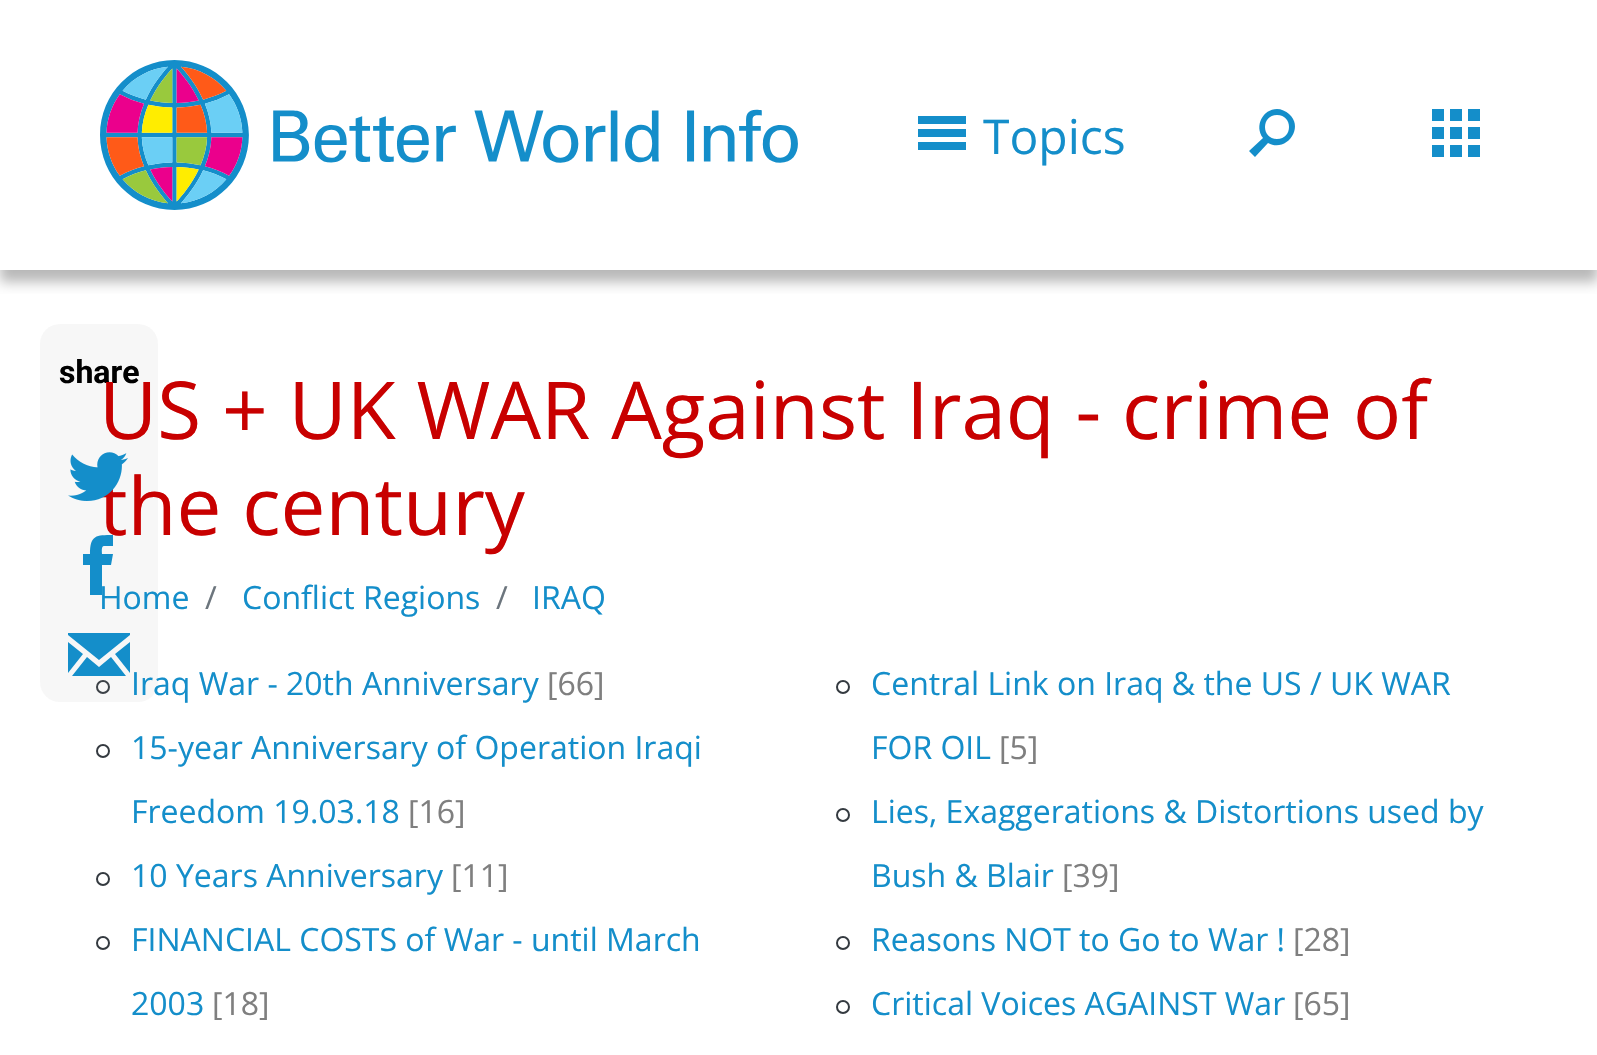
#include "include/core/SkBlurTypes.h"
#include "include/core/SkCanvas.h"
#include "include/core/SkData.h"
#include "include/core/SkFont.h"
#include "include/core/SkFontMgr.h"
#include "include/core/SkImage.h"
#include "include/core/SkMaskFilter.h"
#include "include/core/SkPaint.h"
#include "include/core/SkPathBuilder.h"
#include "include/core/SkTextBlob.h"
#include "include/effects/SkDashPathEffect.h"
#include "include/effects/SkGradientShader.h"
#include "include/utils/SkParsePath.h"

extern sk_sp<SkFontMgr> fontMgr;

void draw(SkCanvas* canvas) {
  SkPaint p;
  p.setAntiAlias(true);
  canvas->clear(SK_ColorWHITE);
  canvas->save();
  canvas->clipRect(SkRect::MakeLTRB(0, 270, 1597, 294));
  p.setColor(SkColorSetRGB(184, 184, 184));
  p.setMaskFilter(SkMaskFilter::MakeBlur(kNormal_SkBlurStyle, 6));
  canvas->drawRect(SkRect::MakeLTRB(0, 12, 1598, 282), p);
  p.setMaskFilter(nullptr);
  canvas->restore();
  canvas->drawImageRect(SkImages::DeferredFromEncodedData(SkData::MakeFromFileName("images/1.png")), SkRect::MakeLTRB(100, 60, 798, 210), SkSamplingOptions());
  p.setColor(SkColorSetRGB(20, 142, 202));
  canvas->drawPath(SkPathBuilder().moveTo(918, 129).lineTo(966, 129).lineTo(966, 137).lineTo(918, 137).close().moveTo(918, 116).lineTo(966, 116).lineTo(966, 124).lineTo(918, 124).close().moveTo(918, 142).lineTo(966, 142).lineTo(966, 150).lineTo(918, 150).close().detach(), p);
  canvas->drawPath(SkPathBuilder().moveTo(1277, 109).cubicTo(1263, 109, 1254, 126, 1263, 138).lineTo(1249, 151).lineTo(1255, 157).lineTo(1268, 143).cubicTo(1286, 153, 1305, 128, 1289, 114).cubicTo(1286, 111, 1281, 109, 1277, 109).close().moveTo(1277, 139).cubicTo(1261, 139, 1261, 115, 1277, 115).cubicTo(1293, 115, 1293, 139, 1277, 139).close().detach(), p);
  canvas->drawImageRect(SkImages::DeferredFromEncodedData(SkData::MakeFromFileName("images/2.png")), SkRect::MakeLTRB(1432, 109, 1480, 157), SkSamplingOptions());
  p.setStyle(SkPaint::kStroke_Style);
  p.setStrokeWidth(2);
  p.setColor(SkColorSetRGB(52, 58, 64));
  canvas->drawCircle(103, 687, 6, p);
  p.setStyle(SkPaint::kFill_Style);
  p.setColor(SkColorSetARGB(20, 159, 159, 159));
  canvas->drawRoundRect(SkRect::MakeLTRB(40, 324, 158, 702), 20, 20, p);
  p.setColor(SkColorSetRGB(20, 142, 202));
  canvas->drawPath(SkPathBuilder().moveTo(99, 667).lineTo(87, 657).lineTo(72, 676).lineTo(126, 676).lineTo(111, 657).close().moveTo(130, 642).lineTo(115, 654).lineTo(130, 673).close().moveTo(68, 673).lineTo(83, 654).lineTo(68, 642).close().moveTo(68, 633).lineTo(68, 635).lineTo(99, 660).lineTo(130, 635).lineTo(130, 633).close().detach(), p);
  p.setStyle(SkPaint::kStroke_Style);
  p.setColor(SkColorSetRGB(52, 58, 64));
  canvas->drawCircle(843, 687, 6, p);
  canvas->drawCircle(103, 751, 6, p);
  canvas->drawCircle(103, 879, 6, p);
  canvas->drawCircle(843, 815, 6, p);
  canvas->drawCircle(103, 943, 6, p);
  canvas->drawCircle(843, 943, 6, p);
  canvas->drawCircle(843, 1007, 6, p);
  SkFont font1(fontMgr->matchFamilyStyle("Open Sans", SkFontStyle::Normal()), 48);
  font1.setSubpixel(true);
  p.setStyle(SkPaint::kFill_Style);
  p.setColor(SkColorSetRGB(20, 142, 202));
  canvas->drawString("Topics", 983, 154, font1, p);
  SkFont font2(fontMgr->matchFamilyStyle("Roboto", SkFontStyle::Bold()), 32);
  font2.setSubpixel(true);
  p.setColor(SK_ColorBLACK);
  canvas->drawString("share", 59, 383, font2, p);
  SkFont font3(fontMgr->matchFamilyStyle("Open Sans", SkFontStyle::Normal()), 80);
  font3.setSubpixel(true);
  p.setColor(SkColorSetRGB(200, 0, 0));
  canvas->drawString("US + UK WAR Against Iraq - crime of", 99, 439, font3, p);
  canvas->drawString("the century", 99, 535, font3, p);
  p.setColor(SkColorSetRGB(20, 142, 202));
  canvas->drawPath(SkPathBuilder().moveTo(104, 546).lineTo(113, 546).lineTo(113, 535).cubicTo(96, 535, 90, 535, 90, 554).lineTo(83, 554).lineTo(83, 565).lineTo(90, 565).lineTo(90, 595).lineTo(102, 595).lineTo(102, 565).lineTo(111, 565).lineTo(113, 554).lineTo(102, 554).cubicTo(102, 552, 101, 546, 104, 546).close().detach(), p);
  canvas->drawImageRect(SkImages::DeferredFromEncodedData(SkData::MakeFromFileName("images/3.png")), SkRect::MakeLTRB(68, 452, 128, 501), SkSamplingOptions());
  SkFont font4(fontMgr->matchFamilyStyle("Open Sans", SkFontStyle::Normal()), 32);
  font4.setSubpixel(true);
  canvas->drawString("Home", 99, 609, font4, p);
  p.setColor(SkColorSetRGB(108, 117, 125));
  canvas->drawString("/", 205, 609, font4, p);
  p.setColor(SkColorSetRGB(20, 142, 202));
  canvas->drawString("Conflict Regions", 242, 609, font4, p);
  p.setColor(SkColorSetRGB(108, 117, 125));
  canvas->drawString("/", 496, 609, font4, p);
  p.setColor(SkColorSetRGB(20, 142, 202));
  canvas->drawString("IRAQ", 532, 609, font4, p);
  canvas->drawString("Iraq War - 20th Anniversary", 131, 695, font4, p);
  p.setColor(SkColorSetRGB(127, 127, 127));
  canvas->drawString("[66]", 547, 695, font4, p);
  p.setColor(SkColorSetRGB(20, 142, 202));
  canvas->drawString("Central Link on Iraq & the US / UK WAR", 871, 695, font4, p);
  canvas->drawString("FOR OIL", 871, 759, font4, p);
  p.setColor(SkColorSetRGB(127, 127, 127));
  canvas->drawString("[5]", 999, 759, font4, p);
  p.setColor(SkColorSetRGB(20, 142, 202));
  canvas->drawString("15-year Anniversary of Operation Iraqi", 131, 759, font4, p);
  canvas->drawString("Freedom 19.03.18", 131, 823, font4, p);
  p.setColor(SkColorSetRGB(127, 127, 127));
  canvas->drawString("[16]", 408, 823, font4, p);
  p.setColor(SkColorSetRGB(20, 142, 202));
  canvas->drawString("10 Years Anniversary", 131, 887, font4, p);
  p.setColor(SkColorSetRGB(127, 127, 127));
  canvas->drawString("[11]", 451, 887, font4, p);
  p.setColor(SkColorSetRGB(20, 142, 202));
  canvas->drawString("Lies, Exaggerations & Distortions used by", 871, 823, font4, p);
  canvas->drawString("Bush & Blair", 871, 887, font4, p);
  p.setColor(SkColorSetRGB(127, 127, 127));
  canvas->drawString("[39]", 1062, 887, font4, p);
  p.setColor(SkColorSetRGB(20, 142, 202));
  canvas->drawString("FINANCIAL COSTS of War - until March", 131, 951, font4, p);
  canvas->drawString("2003", 131, 1015, font4, p);
  p.setColor(SkColorSetRGB(127, 127, 127));
  canvas->drawString("[18]", 212, 1015, font4, p);
  p.setColor(SkColorSetRGB(20, 142, 202));
  canvas->drawString("Reasons NOT to Go to War !", 871, 951, font4, p);
  p.setColor(SkColorSetRGB(127, 127, 127));
  canvas->drawString("[28]", 1293, 951, font4, p);
  p.setColor(SkColorSetRGB(20, 142, 202));
  canvas->drawString("Critical Voices AGAINST War", 871, 1015, font4, p);
  p.setColor(SkColorSetRGB(127, 127, 127));
  canvas->drawString("[65]", 1293, 1015, font4, p);
}
